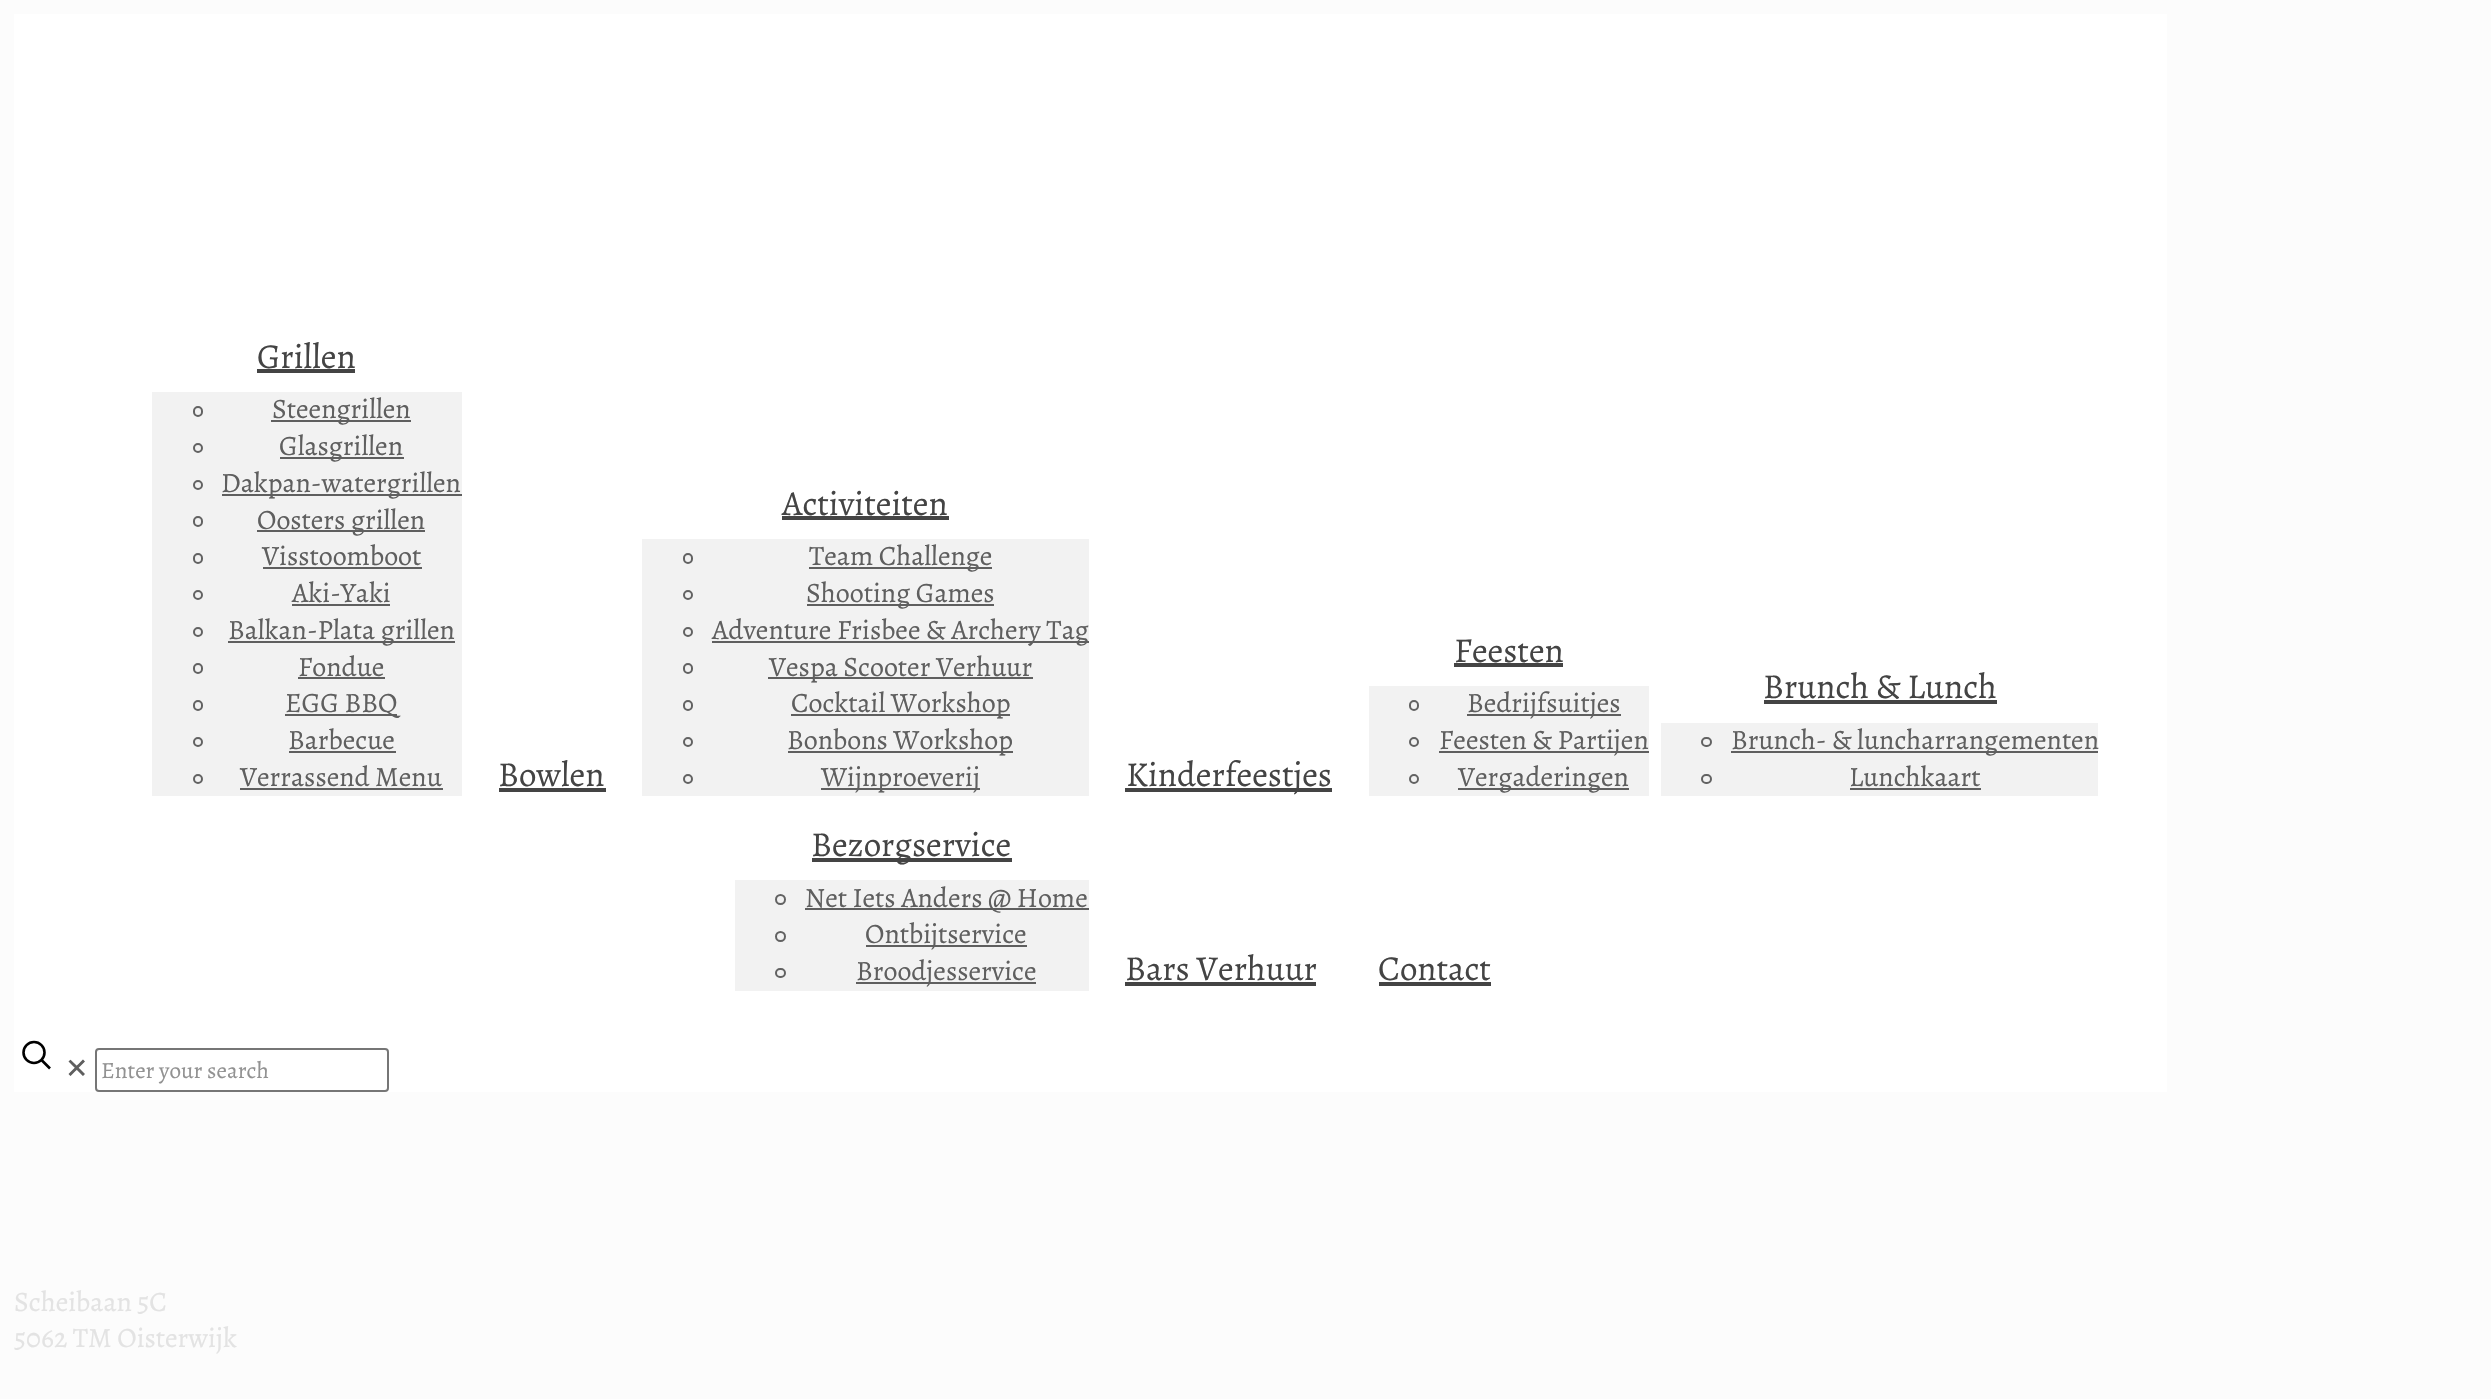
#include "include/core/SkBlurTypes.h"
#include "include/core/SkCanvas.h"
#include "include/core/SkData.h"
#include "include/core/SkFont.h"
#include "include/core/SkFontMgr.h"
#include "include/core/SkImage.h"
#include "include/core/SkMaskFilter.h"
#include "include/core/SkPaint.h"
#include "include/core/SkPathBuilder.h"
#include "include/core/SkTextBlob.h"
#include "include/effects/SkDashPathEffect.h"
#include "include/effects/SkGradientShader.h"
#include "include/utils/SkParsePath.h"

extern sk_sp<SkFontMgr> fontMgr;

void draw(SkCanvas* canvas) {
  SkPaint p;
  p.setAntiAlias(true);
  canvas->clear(SkColorSetRGB(252, 252, 252));
  p.setColor(SK_ColorWHITE);
  canvas->drawRect(SkRect::MakeLTRB(14, 14, 2167, 1092), p);
  p.setColor(SkColorSetRGB(68, 68, 68));
  canvas->drawRect(SkRect::MakeLTRB(257, 369, 355, 373), p);
  p.setColor(SkColorSetRGB(242, 242, 242));
  canvas->drawRect(SkRect::MakeLTRB(152, 392, 462, 796), p);
  p.setStyle(SkPaint::kStroke_Style);
  p.setStrokeWidth(2);
  p.setColor(SkColorSetRGB(98, 98, 98));
  canvas->drawRoundRect(SkRect::MakeLTRB(194, 407, 202, 416), 4, 4, p);
  p.setStyle(SkPaint::kFill_Style);
  p.setColor(SkColorSetRGB(95, 95, 95));
  canvas->drawRect(SkRect::MakeLTRB(271, 420, 411, 422), p);
  p.setStyle(SkPaint::kStroke_Style);
  p.setColor(SkColorSetRGB(98, 98, 98));
  canvas->drawCircle(198, 448, 4, p);
  p.setStyle(SkPaint::kFill_Style);
  p.setColor(SkColorSetRGB(95, 95, 95));
  canvas->drawRect(SkRect::MakeLTRB(280, 457, 404, 459), p);
  p.setStyle(SkPaint::kStroke_Style);
  p.setColor(SkColorSetRGB(98, 98, 98));
  canvas->drawCircle(198, 485, 4, p);
  p.setStyle(SkPaint::kFill_Style);
  p.setColor(SkColorSetRGB(95, 95, 95));
  canvas->drawRect(SkRect::MakeLTRB(222, 494, 462, 496), p);
  p.setStyle(SkPaint::kStroke_Style);
  p.setColor(SkColorSetRGB(98, 98, 98));
  canvas->drawRoundRect(SkRect::MakeLTRB(194, 517, 202, 526), 4, 4, p);
  p.setStyle(SkPaint::kFill_Style);
  p.setColor(SkColorSetRGB(95, 95, 95));
  canvas->drawRect(SkRect::MakeLTRB(257, 530, 425, 532), p);
  p.setStyle(SkPaint::kStroke_Style);
  p.setColor(SkColorSetRGB(98, 98, 98));
  canvas->drawRoundRect(SkRect::MakeLTRB(194, 554, 202, 563), 4, 4, p);
  p.setStyle(SkPaint::kFill_Style);
  p.setColor(SkColorSetRGB(95, 95, 95));
  canvas->drawRect(SkRect::MakeLTRB(263, 567, 422, 569), p);
  p.setStyle(SkPaint::kStroke_Style);
  p.setColor(SkColorSetRGB(98, 98, 98));
  canvas->drawCircle(198, 595, 4, p);
  p.setStyle(SkPaint::kFill_Style);
  p.setColor(SkColorSetRGB(95, 95, 95));
  canvas->drawRect(SkRect::MakeLTRB(292, 604, 390, 606), p);
  p.setStyle(SkPaint::kStroke_Style);
  p.setColor(SkColorSetRGB(98, 98, 98));
  canvas->drawCircle(198, 632, 4, p);
  p.setStyle(SkPaint::kFill_Style);
  p.setColor(SkColorSetRGB(95, 95, 95));
  canvas->drawRect(SkRect::MakeLTRB(228, 641, 455, 643), p);
  p.setStyle(SkPaint::kStroke_Style);
  p.setColor(SkColorSetRGB(98, 98, 98));
  canvas->drawRoundRect(SkRect::MakeLTRB(194, 664, 202, 673), 4, 4, p);
  p.setStyle(SkPaint::kFill_Style);
  p.setColor(SkColorSetRGB(95, 95, 95));
  canvas->drawRect(SkRect::MakeLTRB(298, 677, 385, 679), p);
  p.setStyle(SkPaint::kStroke_Style);
  p.setColor(SkColorSetRGB(98, 98, 98));
  canvas->drawRoundRect(SkRect::MakeLTRB(194, 701, 202, 710), 4, 4, p);
  p.setStyle(SkPaint::kFill_Style);
  p.setColor(SkColorSetRGB(95, 95, 95));
  canvas->drawRect(SkRect::MakeLTRB(285, 714, 397, 716), p);
  p.setStyle(SkPaint::kStroke_Style);
  p.setColor(SkColorSetRGB(98, 98, 98));
  canvas->drawCircle(198, 742, 4, p);
  p.setStyle(SkPaint::kFill_Style);
  p.setColor(SkColorSetRGB(95, 95, 95));
  canvas->drawRect(SkRect::MakeLTRB(289, 751, 396, 753), p);
  p.setStyle(SkPaint::kStroke_Style);
  p.setColor(SkColorSetRGB(98, 98, 98));
  canvas->drawCircle(198, 779, 4, p);
  p.setStyle(SkPaint::kFill_Style);
  p.setColor(SkColorSetRGB(95, 95, 95));
  canvas->drawRect(SkRect::MakeLTRB(240, 788, 443, 790), p);
  p.setColor(SkColorSetRGB(68, 68, 68));
  canvas->drawRect(SkRect::MakeLTRB(499, 788, 606, 792), p);
  canvas->drawRect(SkRect::MakeLTRB(782, 516, 949, 520), p);
  p.setColor(SkColorSetRGB(242, 242, 242));
  canvas->drawRect(SkRect::MakeLTRB(642, 539, 1089, 796), p);
  p.setStyle(SkPaint::kStroke_Style);
  p.setColor(SkColorSetRGB(98, 98, 98));
  canvas->drawRoundRect(SkRect::MakeLTRB(684, 554, 692, 563), 4, 4, p);
  p.setStyle(SkPaint::kFill_Style);
  p.setColor(SkColorSetRGB(95, 95, 95));
  canvas->drawRect(SkRect::MakeLTRB(809, 567, 992, 569), p);
  p.setStyle(SkPaint::kStroke_Style);
  p.setColor(SkColorSetRGB(98, 98, 98));
  canvas->drawCircle(688, 595, 4, p);
  p.setStyle(SkPaint::kFill_Style);
  p.setColor(SkColorSetRGB(95, 95, 95));
  canvas->drawRect(SkRect::MakeLTRB(807, 604, 994, 606), p);
  p.setStyle(SkPaint::kStroke_Style);
  p.setColor(SkColorSetRGB(98, 98, 98));
  canvas->drawCircle(688, 632, 4, p);
  p.setStyle(SkPaint::kFill_Style);
  p.setColor(SkColorSetRGB(95, 95, 95));
  canvas->drawRect(SkRect::MakeLTRB(712, 641, 1089, 643), p);
  p.setStyle(SkPaint::kStroke_Style);
  p.setColor(SkColorSetRGB(98, 98, 98));
  canvas->drawRoundRect(SkRect::MakeLTRB(684, 664, 692, 673), 4, 4, p);
  p.setStyle(SkPaint::kFill_Style);
  p.setColor(SkColorSetRGB(95, 95, 95));
  canvas->drawRect(SkRect::MakeLTRB(768, 677, 1033, 679), p);
  p.setStyle(SkPaint::kStroke_Style);
  p.setColor(SkColorSetRGB(98, 98, 98));
  canvas->drawRoundRect(SkRect::MakeLTRB(684, 701, 692, 710), 4, 4, p);
  p.setStyle(SkPaint::kFill_Style);
  p.setColor(SkColorSetRGB(95, 95, 95));
  canvas->drawRect(SkRect::MakeLTRB(791, 714, 1010, 716), p);
  p.setStyle(SkPaint::kStroke_Style);
  p.setColor(SkColorSetRGB(98, 98, 98));
  canvas->drawCircle(688, 742, 4, p);
  p.setStyle(SkPaint::kFill_Style);
  p.setColor(SkColorSetRGB(95, 95, 95));
  canvas->drawRect(SkRect::MakeLTRB(788, 751, 1013, 753), p);
  p.setStyle(SkPaint::kStroke_Style);
  p.setColor(SkColorSetRGB(98, 98, 98));
  canvas->drawCircle(688, 779, 4, p);
  p.setStyle(SkPaint::kFill_Style);
  p.setColor(SkColorSetRGB(95, 95, 95));
  canvas->drawRect(SkRect::MakeLTRB(821, 788, 980, 790), p);
  p.setColor(SkColorSetRGB(68, 68, 68));
  canvas->drawRect(SkRect::MakeLTRB(1125, 788, 1332, 792), p);
  canvas->drawRect(SkRect::MakeLTRB(1454, 663, 1563, 667), p);
  p.setColor(SkColorSetRGB(242, 242, 242));
  canvas->drawRect(SkRect::MakeLTRB(1369, 686, 1649, 796), p);
  p.setStyle(SkPaint::kStroke_Style);
  p.setColor(SkColorSetRGB(98, 98, 98));
  canvas->drawRoundRect(SkRect::MakeLTRB(1410, 701, 1418, 710), 4, 4, p);
  p.setStyle(SkPaint::kFill_Style);
  p.setColor(SkColorSetRGB(95, 95, 95));
  canvas->drawRect(SkRect::MakeLTRB(1467, 714, 1621, 716), p);
  p.setStyle(SkPaint::kStroke_Style);
  p.setColor(SkColorSetRGB(98, 98, 98));
  canvas->drawCircle(1414, 742, 4, p);
  p.setStyle(SkPaint::kFill_Style);
  p.setColor(SkColorSetRGB(95, 95, 95));
  canvas->drawRect(SkRect::MakeLTRB(1439, 751, 1649, 753), p);
  p.setStyle(SkPaint::kStroke_Style);
  p.setColor(SkColorSetRGB(98, 98, 98));
  canvas->drawCircle(1414, 779, 4, p);
  p.setStyle(SkPaint::kFill_Style);
  p.setColor(SkColorSetRGB(95, 95, 95));
  canvas->drawRect(SkRect::MakeLTRB(1458, 788, 1629, 790), p);
  p.setColor(SkColorSetRGB(68, 68, 68));
  canvas->drawRect(SkRect::MakeLTRB(1764, 700, 1997, 704), p);
  p.setColor(SkColorSetRGB(242, 242, 242));
  canvas->drawRect(SkRect::MakeLTRB(1661, 723, 2098, 796), p);
  p.setStyle(SkPaint::kStroke_Style);
  p.setColor(SkColorSetRGB(98, 98, 98));
  canvas->drawRoundRect(SkRect::MakeLTRB(1702, 738, 1711, 746), 4, 4, p);
  p.setStyle(SkPaint::kFill_Style);
  p.setColor(SkColorSetRGB(95, 95, 95));
  canvas->drawRect(SkRect::MakeLTRB(1731, 751, 2098, 753), p);
  p.setStyle(SkPaint::kStroke_Style);
  p.setColor(SkColorSetRGB(98, 98, 98));
  canvas->drawRoundRect(SkRect::MakeLTRB(1702, 775, 1711, 783), 4, 4, p);
  p.setStyle(SkPaint::kFill_Style);
  p.setColor(SkColorSetRGB(95, 95, 95));
  canvas->drawRect(SkRect::MakeLTRB(1850, 788, 1981, 790), p);
  p.setColor(SkColorSetRGB(68, 68, 68));
  canvas->drawRect(SkRect::MakeLTRB(812, 858, 1012, 862), p);
  p.setColor(SkColorSetRGB(242, 242, 242));
  canvas->drawRect(SkRect::MakeLTRB(735, 880, 1089, 991), p);
  p.setStyle(SkPaint::kStroke_Style);
  p.setColor(SkColorSetRGB(98, 98, 98));
  canvas->drawCircle(780.5f, 899.5f, 4.5f, p);
  p.setStyle(SkPaint::kFill_Style);
  p.setColor(SkColorSetRGB(95, 95, 95));
  canvas->drawRect(SkRect::MakeLTRB(805, 908, 1089, 910), p);
  p.setStyle(SkPaint::kStroke_Style);
  p.setColor(SkColorSetRGB(98, 98, 98));
  canvas->drawCircle(780.5f, 936.5f, 4.5f, p);
  p.setStyle(SkPaint::kFill_Style);
  p.setColor(SkColorSetRGB(95, 95, 95));
  canvas->drawRect(SkRect::MakeLTRB(866, 945, 1027, 947), p);
  p.setStyle(SkPaint::kStroke_Style);
  p.setColor(SkColorSetRGB(98, 98, 98));
  canvas->drawRoundRect(SkRect::MakeLTRB(776, 969, 785, 977), 4, 4, p);
  p.setStyle(SkPaint::kFill_Style);
  p.setColor(SkColorSetRGB(95, 95, 95));
  canvas->drawRect(SkRect::MakeLTRB(856, 982, 1036, 984), p);
  p.setColor(SkColorSetRGB(68, 68, 68));
  canvas->drawRect(SkRect::MakeLTRB(1125, 982, 1316, 986), p);
  canvas->drawRect(SkRect::MakeLTRB(1379, 982, 1491, 986), p);
  p.setStyle(SkPaint::kStroke_Style);
  p.setStrokeWidth(2.6f);
  p.setColor(SK_ColorBLACK);
  canvas->drawCircle(34, 1052.5f, 10.5f, p);
  canvas->drawPath(SkPathBuilder().moveTo(41.5f, 1060).lineTo(50, 1068.5f).detach(), p);
  p.setStrokeWidth(2);
  p.setColor(SkColorSetRGB(118, 118, 118));
  canvas->drawRoundRect(SkRect::MakeLTRB(96, 1049, 388, 1091), 3, 3, p);
  SkFont font1(fontMgr->matchFamilyStyle("Alegreya", SkFontStyle::Normal()), 35);
  font1.setSubpixel(true);
  p.setStyle(SkPaint::kFill_Style);
  p.setColor(SkColorSetRGB(68, 68, 68));
  canvas->drawString("Grillen", 257, 368, font1, p);
  SkFont font2(fontMgr->matchFamilyStyle("Alegreya", SkFontStyle::Normal()), 28);
  font2.setSubpixel(true);
  p.setColor(SkColorSetRGB(95, 95, 95));
  canvas->drawString("Steengrillen", 272, 418, font2, p);
  canvas->drawString("Glasgrillen", 279, 455, font2, p);
  canvas->drawString("Dakpan-watergrillen", 221, 492, font2, p);
  canvas->drawString("Oosters grillen", 257, 529, font2, p);
  canvas->drawString("Visstoomboot", 262, 565, font2, p);
  canvas->drawString("Aki-Yaki", 292, 602, font2, p);
  canvas->drawString("Balkan-Plata grillen", 228, 639, font2, p);
  canvas->drawString("Fondue", 298, 676, font2, p);
  canvas->drawString("EGG BBQ", 285, 712, font2, p);
  canvas->drawString("Barbecue", 288, 749, font2, p);
  canvas->drawString("Verrassend Menu", 240, 786, font2, p);
  p.setColor(SkColorSetRGB(68, 68, 68));
  canvas->drawString("Bowlen", 498, 786, font1, p);
  canvas->drawString("Activiteiten", 782, 515, font1, p);
  p.setColor(SkColorSetRGB(95, 95, 95));
  canvas->drawString("Team Challenge", 809, 565, font2, p);
  canvas->drawString("Shooting Games", 806, 602, font2, p);
  canvas->drawString("Adventure Frisbee & Archery Tag", 712, 639, font2, p);
  canvas->drawString("Vespa Scooter Verhuur", 769, 676, font2, p);
  canvas->drawString("Cocktail Workshop", 791, 712, font2, p);
  canvas->drawString("Bonbons Workshop", 787, 749, font2, p);
  canvas->drawString("Wijnproeverij", 821, 786, font2, p);
  p.setColor(SkColorSetRGB(68, 68, 68));
  canvas->drawString("Kinderfeestjes", 1126, 786, font1, p);
  canvas->drawString("Feesten", 1454, 662, font1, p);
  p.setColor(SkColorSetRGB(95, 95, 95));
  canvas->drawString("Bedrijfsuitjes", 1467, 712, font2, p);
  canvas->drawString("Feesten & Partijen", 1439, 749, font2, p);
  canvas->drawString("Vergaderingen", 1458, 786, font2, p);
  p.setColor(SkColorSetRGB(68, 68, 68));
  canvas->drawString("Brunch & Lunch", 1763, 698, font1, p);
  p.setColor(SkColorSetRGB(95, 95, 95));
  canvas->drawString("Brunch- & luncharrangementen", 1731, 749, font2, p);
  canvas->drawString("Lunchkaart", 1849, 786, font2, p);
  p.setColor(SkColorSetRGB(68, 68, 68));
  canvas->drawString("Bezorgservice", 811, 856, font1, p);
  p.setColor(SkColorSetRGB(95, 95, 95));
  canvas->drawString("Net Iets Anders @ Home", 805, 907, font2, p);
  canvas->drawString("Ontbijtservice", 865, 943, font2, p);
  canvas->drawString("Broodjesservice", 856, 980, font2, p);
  p.setColor(SkColorSetRGB(68, 68, 68));
  canvas->drawString("Bars Verhuur", 1125, 980, font1, p);
  canvas->drawString("Contact", 1378, 980, font1, p);
  SkFont font3(fontMgr->matchFamilyStyle("DejaVu Sans", SkFontStyle::Normal()), 28);
  font3.setSubpixel(true);
  p.setColor(SkColorSetRGB(95, 95, 95));
  canvas->drawString("✕", 65, 1078, font3, p);
  SkFont font4(fontMgr->matchFamilyStyle("Alegreya", SkFontStyle::Normal()), 23.25f);
  font4.setSubpixel(true);
  p.setColor(SkColorSetRGB(146, 146, 146));
  canvas->drawString("Enter your search", 101, 1078, font4, p);
  p.setColor(SkColorSetRGB(227, 227, 227));
  canvas->drawString("Scheibaan 5C", 14, 1311, font2, p);
  canvas->drawString("5062 TM Oisterwijk", 14, 1347, font2, p);
}
